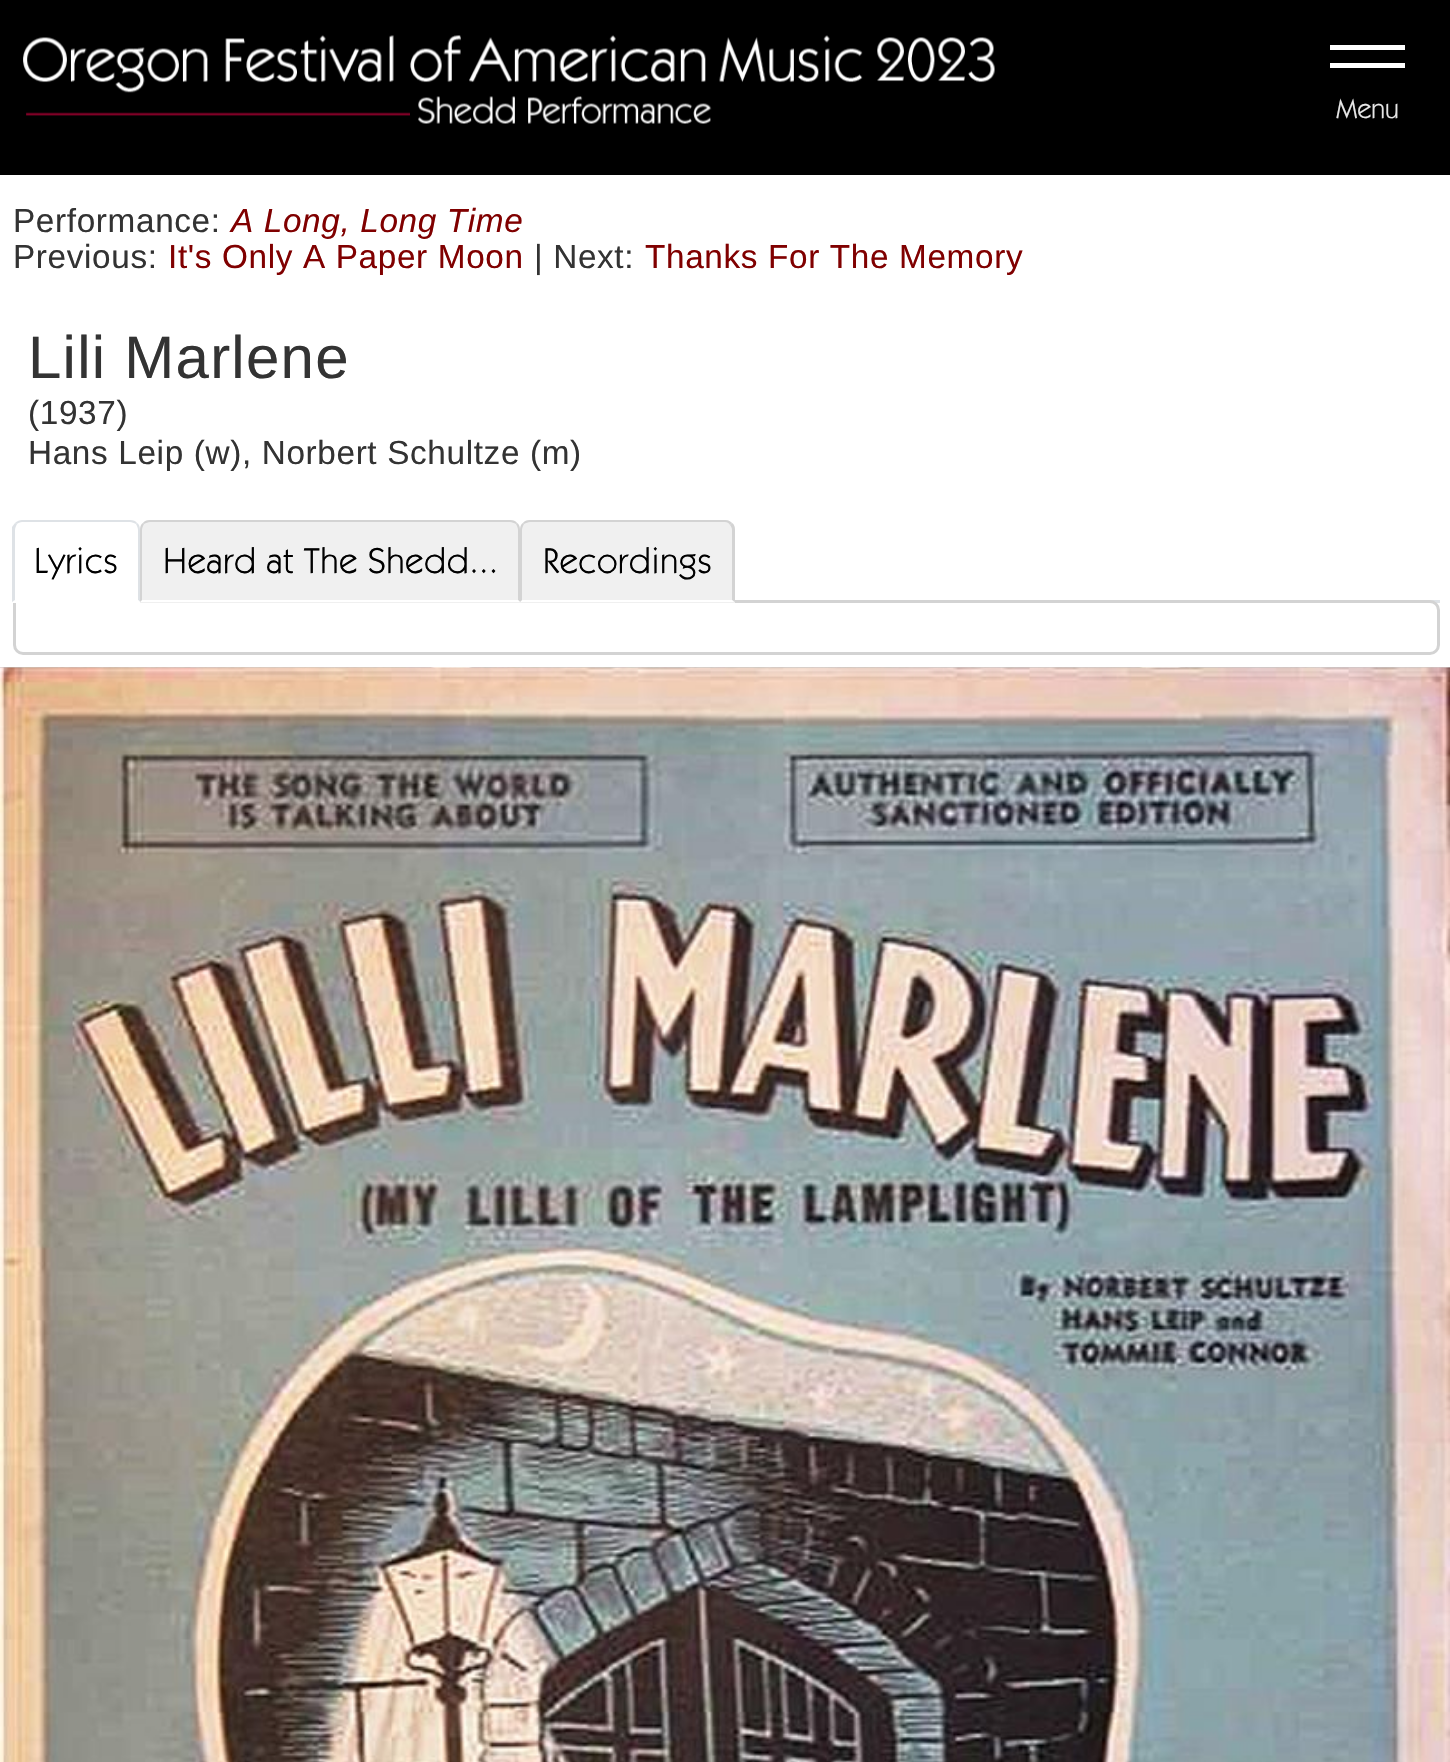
#include "include/core/SkBlurTypes.h"
#include "include/core/SkCanvas.h"
#include "include/core/SkData.h"
#include "include/core/SkFont.h"
#include "include/core/SkFontMgr.h"
#include "include/core/SkImage.h"
#include "include/core/SkMaskFilter.h"
#include "include/core/SkPaint.h"
#include "include/core/SkPathBuilder.h"
#include "include/core/SkTextBlob.h"
#include "include/effects/SkDashPathEffect.h"
#include "include/effects/SkGradientShader.h"
#include "include/utils/SkParsePath.h"

extern sk_sp<SkFontMgr> fontMgr;

void draw(SkCanvas* canvas) {
  SkPaint p;
  p.setAntiAlias(true);
  auto spacedText = [&](const char* s, float x, float y, const SkFont& font, const SkPaint& ink, float letter, float word) {
    std::vector<SkGlyphID> glyphs(font.countText(s, strlen(s), SkTextEncoding::kUTF8));
    std::vector<float> xs(glyphs.size());
    font.textToGlyphs(s, strlen(s), SkTextEncoding::kUTF8, glyphs);
    font.getXPos(glyphs, xs, x);
    float extra = 0;
    for (size_t i = 0; i < glyphs.size(); i++) {
      xs[i] += extra;
      extra += letter + word * (glyphs[i] == font.unicharToGlyph(' '));
    }
    canvas->drawTextBlob(SkTextBlob::MakeFromPosHGlyphs(glyphs, xs, y, font), 0, 0, ink);
  };
  canvas->clear(SK_ColorWHITE);
  p.setColor(SK_ColorBLACK);
  canvas->drawRect(SkRect::MakeLTRB(0, 0, 1450, 175), p);
  canvas->drawImageRect(SkImages::DeferredFromEncodedData(SkData::MakeFromFileName("images/1.png")), SkRect::MakeLTRB(23, 35, 995, 124), SkSamplingOptions());
  p.setColor(SK_ColorWHITE);
  canvas->drawRect(SkRect::MakeLTRB(1330, 45, 1405, 50), p);
  canvas->drawRect(SkRect::MakeLTRB(1330, 63, 1405, 68), p);
  p.setColor(SkColorSetRGB(222, 226, 230));
  canvas->drawRect(SkRect::MakeLTRB(1430, 600, 1440, 603), p);
  p.setStyle(SkPaint::kStroke_Style);
  p.setStrokeWidth(3);
  p.setColor(SkColorSetRGB(211, 211, 211));
  canvas->drawPath(SkPathBuilder().moveTo(14.5f, 601.5f).lineTo(1430, 601.5f).cubicTo(1434.5f, 601.5f, 1438.5f, 605.5f, 1438.5f, 610).lineTo(1438.5f, 645).cubicTo(1438.5f, 649.5f, 1434.5f, 653.5f, 1430, 653.5f).lineTo(23, 653.5f).cubicTo(18.5f, 653.5f, 14.5f, 649.5f, 14.5f, 645).close().detach(), p);
  p.setStyle(SkPaint::kFill_Style);
  p.setColor(SK_ColorWHITE);
  canvas->drawPath(SkPathBuilder().moveTo(23, 520).lineTo(130, 520).cubicTo(135.5f, 520, 140, 524.5f, 140, 530).lineTo(140, 603).lineTo(13, 603).lineTo(13, 530).cubicTo(13, 524.5f, 17.5f, 520, 23, 520).close().detach(), p);
  p.setColor(SkColorSetRGB(222, 226, 230));
  canvas->drawPath(SkPathBuilder().moveTo(22, 520).cubicTo(20, 520, 17, 521, 15, 523).lineTo(17, 524).cubicTo(18, 523, 20, 522, 22, 522).lineTo(130, 522).cubicTo(132, 522, 134, 523, 136, 524).lineTo(137, 523).cubicTo(136, 521, 133, 520, 130, 520).close().detach(), p);
  canvas->drawPath(SkPathBuilder().moveTo(140, 602).lineTo(140, 530).cubicTo(140, 527, 139, 524, 137, 523).lineTo(136, 524).cubicTo(137, 526, 138, 528, 138, 530).lineTo(138, 600).close().detach(), p);
  p.setColor(SK_ColorWHITE);
  canvas->drawPath(SkPathBuilder().moveTo(140, 602).lineTo(13, 602).lineTo(15, 600).lineTo(138, 600).close().detach(), p);
  p.setColor(SkColorSetRGB(222, 226, 230));
  canvas->drawPath(SkPathBuilder().moveTo(12, 527).lineTo(15, 523).lineTo(17, 524).cubicTo(16, 526, 15, 528, 15, 530).lineTo(15, 600).lineTo(12, 602).close().detach(), p);
  p.setColor(SkColorSetRGB(240, 240, 240));
  canvas->drawPath(SkPathBuilder().moveTo(150, 520).lineTo(510, 520).cubicTo(515.5f, 520, 520, 524.5f, 520, 530).lineTo(520, 603).lineTo(140, 603).lineTo(140, 530).cubicTo(140, 524.5f, 144.5f, 520, 150, 520).close().detach(), p);
  p.setColor(SkColorSetRGB(211, 211, 211));
  canvas->drawPath(SkPathBuilder().moveTo(150, 520).cubicTo(147, 520, 144, 521, 143, 523).lineTo(144, 524).cubicTo(146, 523, 148, 522, 150, 522).lineTo(510, 522).cubicTo(512, 522, 514, 523, 516, 524).lineTo(517, 523).cubicTo(516, 521, 513, 520, 510, 520).close().detach(), p);
  canvas->drawPath(SkPathBuilder().moveTo(520, 602).lineTo(520, 530).cubicTo(520, 527, 519, 524, 517, 523).lineTo(516, 524).cubicTo(517, 526, 518, 528, 518, 530).lineTo(518, 600).close().detach(), p);
  p.setColor(SK_ColorWHITE);
  canvas->drawPath(SkPathBuilder().moveTo(520, 602).lineTo(140, 602).lineTo(142, 600).lineTo(518, 600).close().detach(), p);
  p.setColor(SkColorSetRGB(211, 211, 211));
  canvas->drawPath(SkPathBuilder().moveTo(140, 530).lineTo(140, 602).lineTo(142, 600).lineTo(142, 530).cubicTo(142, 528, 143, 526, 144, 524).lineTo(143, 523).cubicTo(141, 524, 140, 527, 140, 530).close().detach(), p);
  p.setColor(SkColorSetRGB(240, 240, 240));
  canvas->drawPath(SkPathBuilder().moveTo(530, 520).lineTo(725, 520).cubicTo(730.5f, 520, 735, 524.5f, 735, 530).lineTo(735, 603).lineTo(520, 603).lineTo(520, 530).cubicTo(520, 524.5f, 524.5f, 520, 530, 520).close().detach(), p);
  p.setColor(SkColorSetRGB(211, 211, 211));
  canvas->drawPath(SkPathBuilder().moveTo(530, 520).cubicTo(527, 520, 524, 521, 523, 523).lineTo(524, 524).cubicTo(526, 523, 528, 522, 530, 522).lineTo(725, 522).cubicTo(727, 522, 729, 523, 730, 525).lineTo(732, 523).cubicTo(730, 521, 728, 520, 725, 520).close().detach(), p);
  canvas->drawPath(SkPathBuilder().moveTo(735, 602).lineTo(735, 530).cubicTo(735, 527, 734, 524, 732, 523).lineTo(730, 525).cubicTo(731, 526, 732, 528, 732, 530).lineTo(732, 600).close().detach(), p);
  p.setColor(SK_ColorWHITE);
  canvas->drawPath(SkPathBuilder().moveTo(734, 602).lineTo(520, 602).lineTo(522, 600).lineTo(732, 600).close().detach(), p);
  p.setColor(SkColorSetRGB(211, 211, 211));
  canvas->drawPath(SkPathBuilder().moveTo(520, 530).lineTo(520, 602).lineTo(522, 600).lineTo(522, 530).cubicTo(522, 528, 523, 526, 524, 524).lineTo(523, 523).cubicTo(521, 524, 520, 527, 520, 530).close().detach(), p);
  canvas->drawImageRect(SkImages::DeferredFromEncodedData(SkData::MakeFromFileName("images/2.png")), SkRect::MakeLTRB(0, 667, 1450, 668), SkSamplingOptions());
  canvas->drawImageRect(SkImages::DeferredFromEncodedData(SkData::MakeFromFileName("images/3.png")), SkRect::MakeLTRB(0, 667, 1450, 668), SkSamplingOptions());
  canvas->drawImageRect(SkImages::DeferredFromEncodedData(SkData::MakeFromFileName("images/4.png")), SkRect::MakeLTRB(0, 667, 1450, 1762), SkSamplingOptions());
  SkFont font1(fontMgr->matchFamilyStyle("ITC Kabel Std", SkFontStyle::Normal()), 27.5f);
  font1.setSubpixel(true);
  p.setColor(SkColorSetRGB(230, 230, 230));
  canvas->drawString("Menu", 1336, 118, font1, p);
  SkFont font2(fontMgr->matchFamilyStyle("Liberation Sans", SkFontStyle::Normal()), 33.3f);
  font2.setSubpixel(true);
  p.setColor(SkColorSetRGB(51, 51, 51));
  spacedText("Performance:", 13, 232, font2, p, 0.65f, 0);
  SkFont font3(fontMgr->matchFamilyStyle("Liberation Sans", SkFontStyle::Italic()), 33.3f);
  font3.setSubpixel(true);
  p.setColor(SkColorSetRGB(128, 0, 0));
  spacedText("A Long, Long Time", 231, 232, font3, p, 0.65f, 0);
  p.setColor(SkColorSetRGB(51, 51, 51));
  spacedText("Previous:", 13, 268, font2, p, 0.65f, 0);
  p.setColor(SkColorSetRGB(128, 0, 0));
  spacedText("It's Only A Paper Moon", 168, 268, font2, p, 0.65f, 0);
  p.setColor(SkColorSetRGB(51, 51, 51));
  spacedText("| Next:", 534, 268, font2, p, 0.65f, 0);
  p.setColor(SkColorSetRGB(128, 0, 0));
  spacedText("Thanks For The Memory", 645, 268, font2, p, 0.65f, 0);
  SkFont font4(fontMgr->matchFamilyStyle("Liberation Sans", SkFontStyle::Normal()), 60);
  font4.setSubpixel(true);
  p.setColor(SkColorSetRGB(51, 51, 51));
  spacedText("Lili Marlene", 28, 378, font4, p, 1.25f, 0);
  spacedText("(1937)", 28, 424, font2, p, 0.65f, 0);
  spacedText("Hans Leip (w), Norbert Schultze (m)", 28, 464, font2, p, 0.65f, 0);
  SkFont font5(fontMgr->matchFamilyStyle("ITC Kabel Std", SkFontStyle::Normal()), 36);
  font5.setSubpixel(true);
  p.setColor(SK_ColorBLACK);
  spacedText("Lyrics", 34, 573, font5, p, 0.75f, 0);
  spacedText("Heard at The Shedd...", 163, 573, font5, p, 0.75f, 0);
  spacedText("Recordings", 543, 573, font5, p, 0.75f, 0);
}
